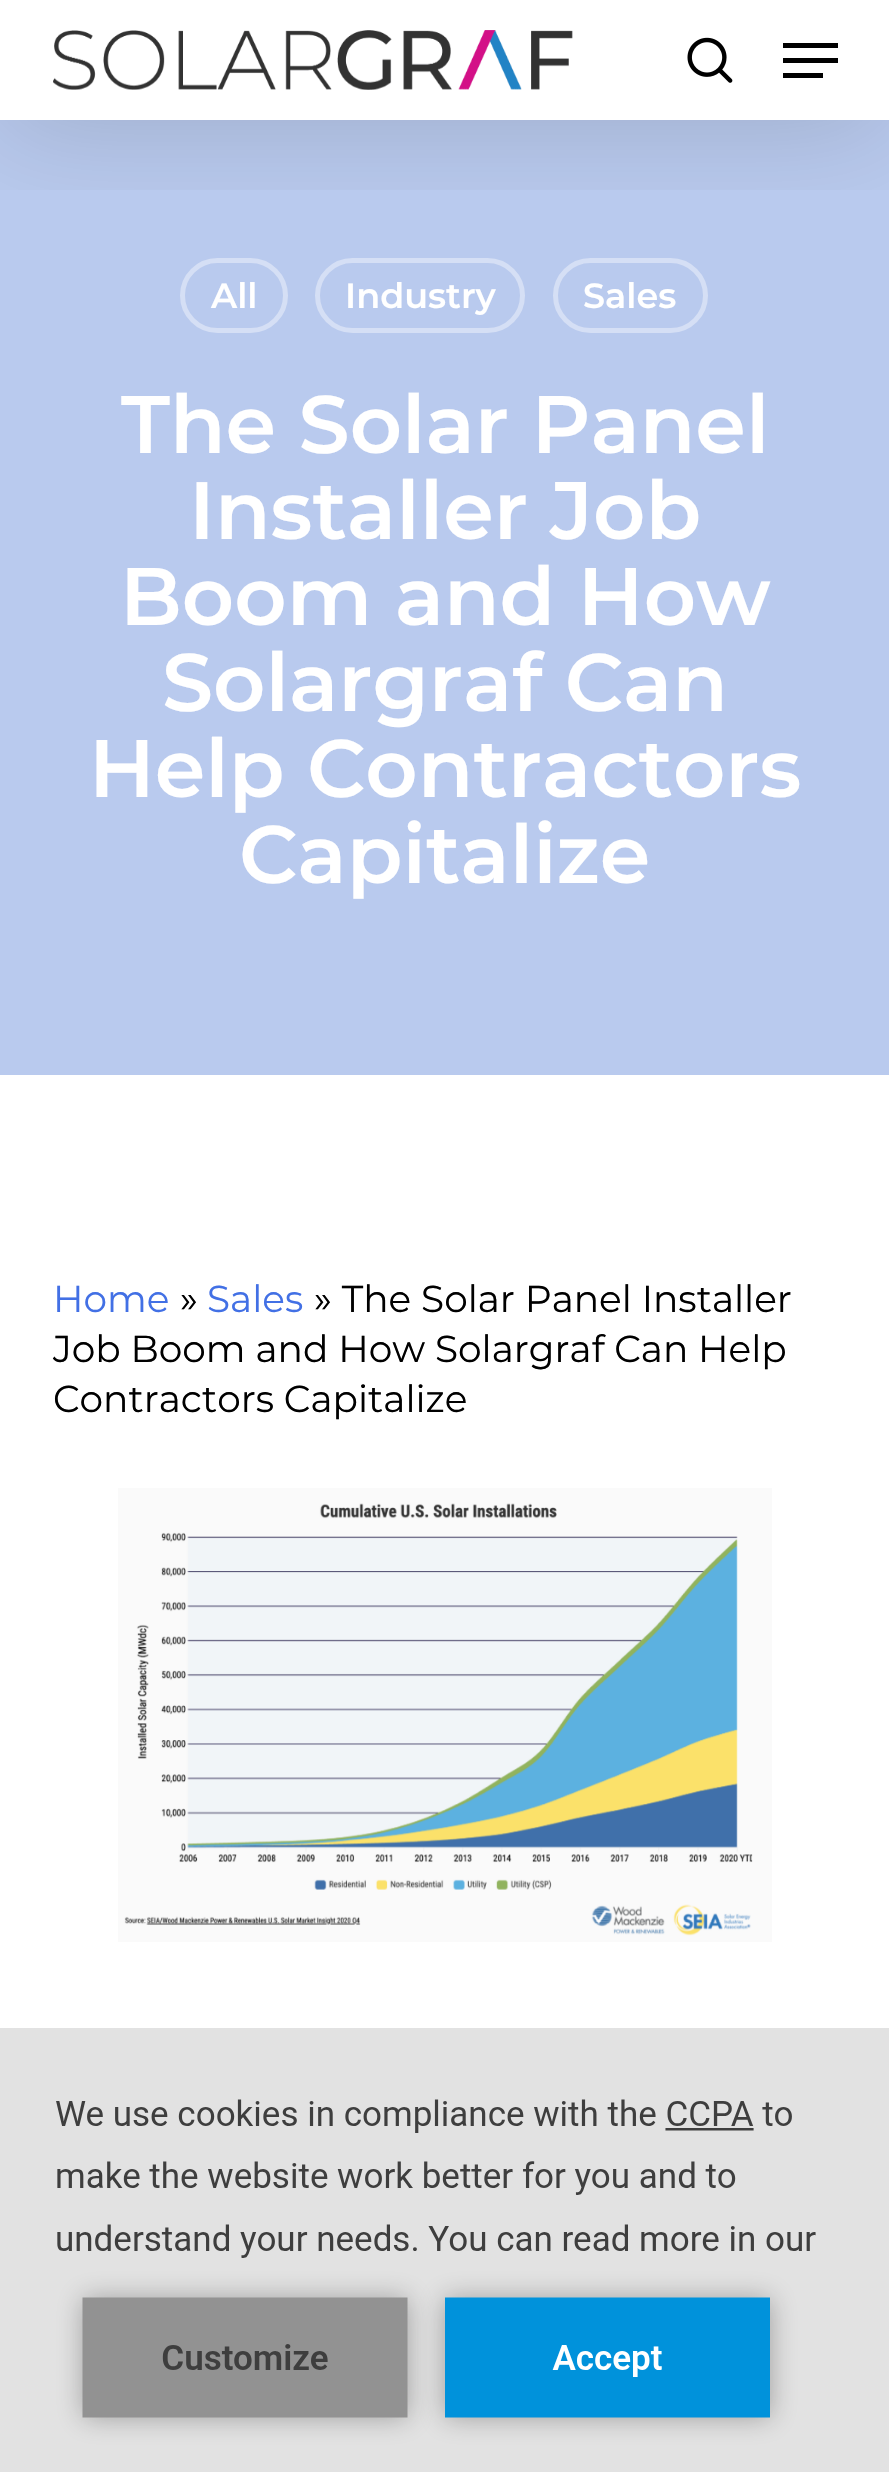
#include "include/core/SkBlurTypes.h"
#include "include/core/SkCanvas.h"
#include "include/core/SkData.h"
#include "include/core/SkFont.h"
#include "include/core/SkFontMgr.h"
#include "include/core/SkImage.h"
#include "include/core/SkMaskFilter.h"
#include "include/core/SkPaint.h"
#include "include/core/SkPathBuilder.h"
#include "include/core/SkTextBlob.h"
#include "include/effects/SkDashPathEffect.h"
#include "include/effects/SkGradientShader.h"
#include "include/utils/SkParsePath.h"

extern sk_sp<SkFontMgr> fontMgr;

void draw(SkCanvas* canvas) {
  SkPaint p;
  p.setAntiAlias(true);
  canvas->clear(SK_ColorWHITE);
  p.setColor(SkColorSetRGB(185, 202, 238));
  canvas->drawRect(SkRect::MakeLTRB(0, 120, 889, 1075), p);
  p.setStyle(SkPaint::kStroke_Style);
  p.setStrokeWidth(5);
  p.setColor(SkColorSetRGB(213, 223, 245));
  canvas->drawRoundRect(SkRect::MakeLTRB(182.5f, 260.5f, 285.5f, 330.5f), 35, 35, p);
  canvas->drawRoundRect(SkRect::MakeLTRB(317.5f, 260.5f, 522.5f, 330.5f), 35, 35, p);
  canvas->drawRoundRect(SkRect::MakeLTRB(555.5f, 260.5f, 705.5f, 330.5f), 35, 35, p);
  canvas->save();
  canvas->clipRect(SkRect::MakeLTRB(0, 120, 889, 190));
  p.setStyle(SkPaint::kFill_Style);
  p.setColor(SkColorSetARGB(38, 0, 0, 0));
  p.setMaskFilter(SkMaskFilter::MakeBlur(kNormal_SkBlurStyle, 56));
  canvas->drawRect(SkRect::MakeLTRB(0, 8, 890, 128), p);
  p.setMaskFilter(nullptr);
  canvas->restore();
  canvas->drawImageRect(SkImages::DeferredFromEncodedData(SkData::MakeFromFileName("images/1.png")), SkRect::MakeLTRB(53, 30, 573, 90), SkSamplingOptions());
  canvas->drawImageRect(SkImages::DeferredFromEncodedData(SkData::MakeFromFileName("images/2.png")), SkRect::MakeLTRB(687, 37, 733, 83), SkSamplingOptions());
  p.setColor(SK_ColorBLACK);
  canvas->drawRect(SkRect::MakeLTRB(783, 43, 838, 48), p);
  canvas->drawRect(SkRect::MakeLTRB(783, 73, 823, 78), p);
  canvas->drawRect(SkRect::MakeLTRB(783, 58, 838, 63), p);
  canvas->drawImageRect(SkImages::DeferredFromEncodedData(SkData::MakeFromFileName("images/3.png")), SkRect::MakeLTRB(118, 1488, 772, 1942), SkSamplingOptions());
  canvas->drawImageRect(SkImages::DeferredFromEncodedData(SkData::MakeFromFileName("images/4.png")), SkRect::MakeLTRB(0, 2028, 889, 2472), SkSamplingOptions());
  SkFont font1(fontMgr->matchFamilyStyle("Montserrat", SkFontStyle(600, SkFontStyle::kNormal_Width, SkFontStyle::kUpright_Slant)), 35);
  font1.setSubpixel(true);
  p.setColor(SK_ColorWHITE);
  canvas->drawString("All", 211, 308, font1, p);
  canvas->drawString("Industry", 345, 308, font1, p);
  canvas->drawString("Sales", 583, 308, font1, p);
  SkFont font2(fontMgr->matchFamilyStyle("Montserrat", SkFontStyle(600, SkFontStyle::kNormal_Width, SkFontStyle::kUpright_Slant)), 81.25f);
  font2.setSubpixel(true);
  canvas->drawString("The Solar Panel", 121, 453, font2, p);
  canvas->drawString("Installer Job", 189, 539, font2, p);
  canvas->drawString("Boom and How", 120, 625, font2, p);
  canvas->drawString("Solargraf Can", 162, 711, font2, p);
  canvas->drawString("Help Contractors", 89, 797, font2, p);
  canvas->drawString("Capitalize", 239, 883, font2, p);
  SkFont font3(fontMgr->matchFamilyStyle("Montserrat", SkFontStyle::Normal()), 37.5f);
  font3.setSubpixel(true);
  p.setColor(SkColorSetRGB(66, 112, 229));
  canvas->drawString("Home", 53, 1312, font3, p);
  p.setColor(SK_ColorBLACK);
  canvas->drawString("»", 180, 1312, font3, p);
  p.setColor(SkColorSetRGB(66, 112, 229));
  canvas->drawString("Sales", 207, 1312, font3, p);
  p.setColor(SK_ColorBLACK);
  canvas->drawString("» The Solar Panel Installer", 314, 1312, font3, p);
  canvas->drawString("Job Boom and How Solargraf Can Help", 53, 1362, font3, p);
  canvas->drawString("Contractors Capitalize", 53, 1412, font3, p);
}
